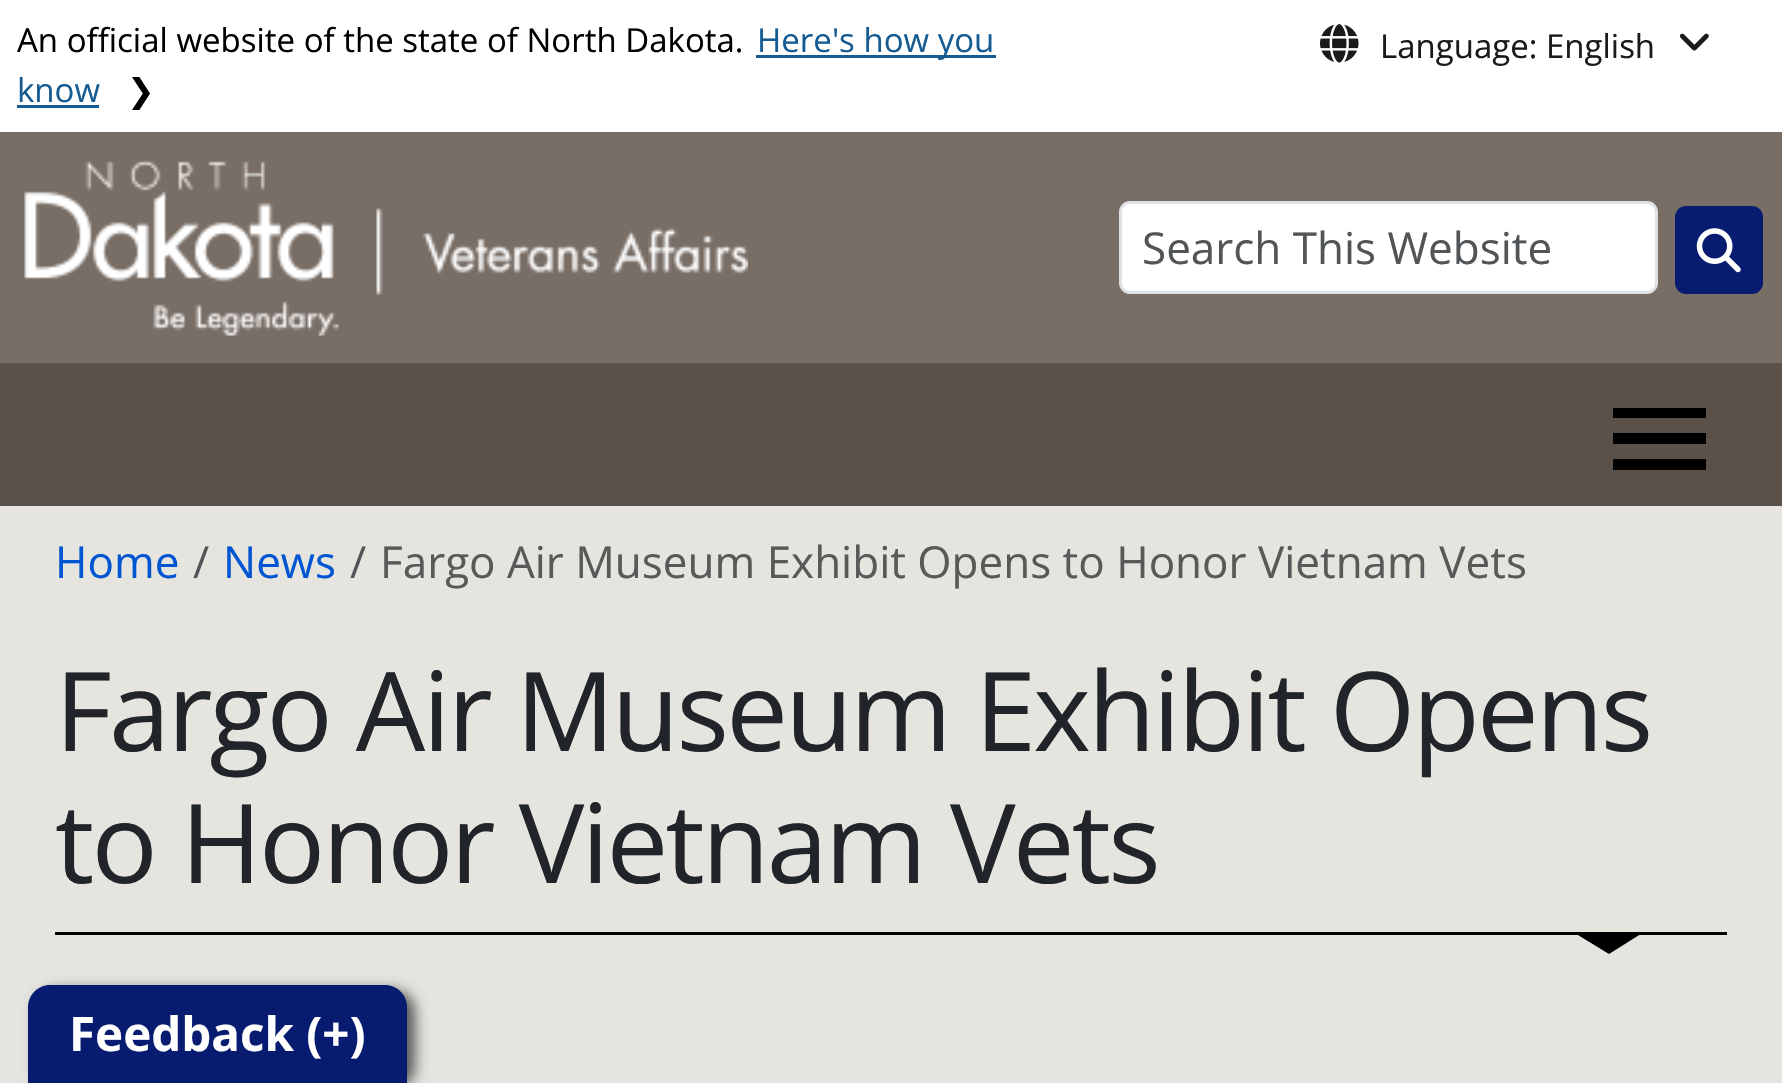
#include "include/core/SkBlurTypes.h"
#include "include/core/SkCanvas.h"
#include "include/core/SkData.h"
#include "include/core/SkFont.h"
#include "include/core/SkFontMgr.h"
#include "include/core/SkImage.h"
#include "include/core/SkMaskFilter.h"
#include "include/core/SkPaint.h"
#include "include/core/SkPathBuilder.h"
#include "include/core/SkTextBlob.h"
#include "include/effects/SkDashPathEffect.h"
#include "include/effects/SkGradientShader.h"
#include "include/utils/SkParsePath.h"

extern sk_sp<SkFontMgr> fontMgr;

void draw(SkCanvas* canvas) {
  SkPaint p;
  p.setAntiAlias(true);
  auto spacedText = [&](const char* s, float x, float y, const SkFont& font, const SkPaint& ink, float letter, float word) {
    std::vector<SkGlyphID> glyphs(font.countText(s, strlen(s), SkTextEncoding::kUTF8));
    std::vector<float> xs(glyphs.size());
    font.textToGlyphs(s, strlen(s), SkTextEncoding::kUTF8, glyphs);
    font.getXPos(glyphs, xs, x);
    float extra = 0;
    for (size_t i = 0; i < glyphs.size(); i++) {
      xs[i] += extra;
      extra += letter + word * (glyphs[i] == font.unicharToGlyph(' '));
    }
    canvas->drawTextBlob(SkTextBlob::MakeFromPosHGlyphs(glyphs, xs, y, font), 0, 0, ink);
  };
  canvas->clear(SkColorSetRGB(229, 228, 223));
  p.setColor(SK_ColorWHITE);
  canvas->drawRect(SkRect::MakeLTRB(0, 0, 1782, 132), p);
  p.setColor(SkColorSetRGB(22, 92, 146));
  canvas->drawRect(SkRect::MakeLTRB(756, 55, 996, 58), p);
  canvas->drawRect(SkRect::MakeLTRB(17, 105, 99, 108), p);
  canvas->drawImageRect(SkImages::DeferredFromEncodedData(SkData::MakeFromFileName("images/1.png")), SkRect::MakeLTRB(1320, 24, 1359, 63), SkSamplingOptions());
  canvas->drawImageRect(SkImages::DeferredFromEncodedData(SkData::MakeFromFileName("images/2.png")), SkRect::MakeLTRB(1679, 33, 1709, 51), SkSamplingOptions());
  p.setColor(SkColorSetRGB(121, 110, 102));
  canvas->drawRect(SkRect::MakeLTRB(0, 132, 1782, 363), p);
  canvas->drawImageRect(SkImages::DeferredFromEncodedData(SkData::MakeFromFileName("images/3.png")), SkRect::MakeLTRB(24, 159, 748, 336), SkSamplingOptions());
  p.setColor(SK_ColorWHITE);
  canvas->drawRoundRect(SkRect::MakeLTRB(1120.5f, 202.5f, 1656.5f, 292.5f), 9.5f, 9.5f, p);
  p.setStyle(SkPaint::kStroke_Style);
  p.setStrokeWidth(3);
  p.setColor(SkColorSetRGB(222, 226, 230));
  canvas->drawRoundRect(SkRect::MakeLTRB(1120.5f, 202.5f, 1656.5f, 292.5f), 9.5f, 9.5f, p);
  p.setStyle(SkPaint::kFill_Style);
  p.setColor(SkColorSetRGB(7, 28, 112));
  canvas->drawRoundRect(SkRect::MakeLTRB(1675, 206, 1763, 294), 11, 11, p);
  canvas->drawImageRect(SkImages::DeferredFromEncodedData(SkData::MakeFromFileName("images/4.png")), SkRect::MakeLTRB(1696, 228, 1741, 273), SkSamplingOptions());
  p.setColor(SkColorSetRGB(90, 81, 75));
  canvas->drawRect(SkRect::MakeLTRB(0, 363, 1782, 506), p);
  p.setColor(SK_ColorBLACK);
  canvas->drawPath(SkPathBuilder().moveTo(1613, 470).lineTo(1706, 470).lineTo(1706, 459).lineTo(1613, 459).close().moveTo(1613, 444).lineTo(1706, 444).lineTo(1706, 433).lineTo(1613, 433).close().moveTo(1613, 408).lineTo(1613, 418).lineTo(1706, 418).lineTo(1706, 408).close().detach(), p);
  canvas->drawRect(SkRect::MakeLTRB(55, 932, 1727, 935), p);
  canvas->drawPath(SkPathBuilder().moveTo(1573, 932).lineTo(1644, 932).lineTo(1609, 954).close().detach(), p);
  p.setColor(SkColorSetRGB(85, 85, 85));
  p.setMaskFilter(SkMaskFilter::MakeBlur(kNormal_SkBlurStyle, 7));
  canvas->drawRoundRect(SkRect::MakeLTRB(36, 990, 415, 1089), 22, 22, p);
  p.setMaskFilter(nullptr);
  p.setColor(SkColorSetRGB(7, 28, 112));
  canvas->drawPath(SkPathBuilder().moveTo(50, 985).lineTo(385, 985).cubicTo(397, 985, 407, 995, 407, 1007).lineTo(407, 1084).lineTo(28, 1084).lineTo(28, 1007).cubicTo(28, 995, 38, 985, 50, 985).close().detach(), p);
  SkFont font1(fontMgr->matchFamilyStyle("Open Sans", SkFontStyle::Normal()), 33);
  font1.setSubpixel(true);
  p.setColor(SK_ColorBLACK);
  canvas->drawString("An official website of the state of North Dakota.", 17, 52, font1, p);
  p.setColor(SkColorSetRGB(22, 92, 146));
  canvas->drawString("Here's how you", 757, 52, font1, p);
  canvas->drawString("know", 17, 102, font1, p);
  SkFont font2(fontMgr->matchFamilyStyle("DejaVu Sans", SkFontStyle::Normal()), 33);
  font2.setSubpixel(true);
  p.setColor(SK_ColorBLACK);
  canvas->drawString("❯", 127, 102, font2, p);
  p.setColor(SkColorSetRGB(26, 26, 26));
  canvas->drawString("Language: English", 1380, 58, font1, p);
  SkFont font3(fontMgr->matchFamilyStyle("Open Sans", SkFontStyle::Normal()), 44);
  font3.setSubpixel(true);
  p.setColor(SkColorSetRGB(82, 85, 87));
  canvas->drawString("Search This Website", 1142, 264, font3, p);
  p.setColor(SkColorSetRGB(0, 86, 210));
  canvas->drawString("Home", 55, 578, font3, p);
  p.setColor(SkColorSetRGB(82, 85, 87));
  canvas->drawString("/", 193, 578, font3, p);
  p.setColor(SkColorSetRGB(0, 86, 210));
  canvas->drawString("News", 223, 578, font3, p);
  p.setColor(SkColorSetRGB(82, 85, 87));
  canvas->drawString("/", 350, 578, font3, p);
  p.setColor(SkColorSetRGB(89, 89, 89));
  canvas->drawString("Fargo Air Museum Exhibit Opens to Honor Vietnam Vets", 380, 578, font3, p);
  SkFont font4(fontMgr->matchFamilyStyle("Open Sans", SkFontStyle::Normal()), 110);
  font4.setSubpixel(true);
  p.setColor(SkColorSetRGB(33, 37, 41));
  spacedText("Fargo Air Museum Exhibit Opens", 55, 751, font4, p, -2.75f, 0);
  spacedText("to Honor Vietnam Vets", 55, 883, font4, p, -2.75f, 0);
  SkFont font5(fontMgr->matchFamilyStyle("Open Sans", SkFontStyle::Bold()), 47.5f);
  font5.setSubpixel(true);
  p.setColor(SK_ColorWHITE);
  canvas->drawString("Feedback (+)", 69, 1051, font5, p);
}
